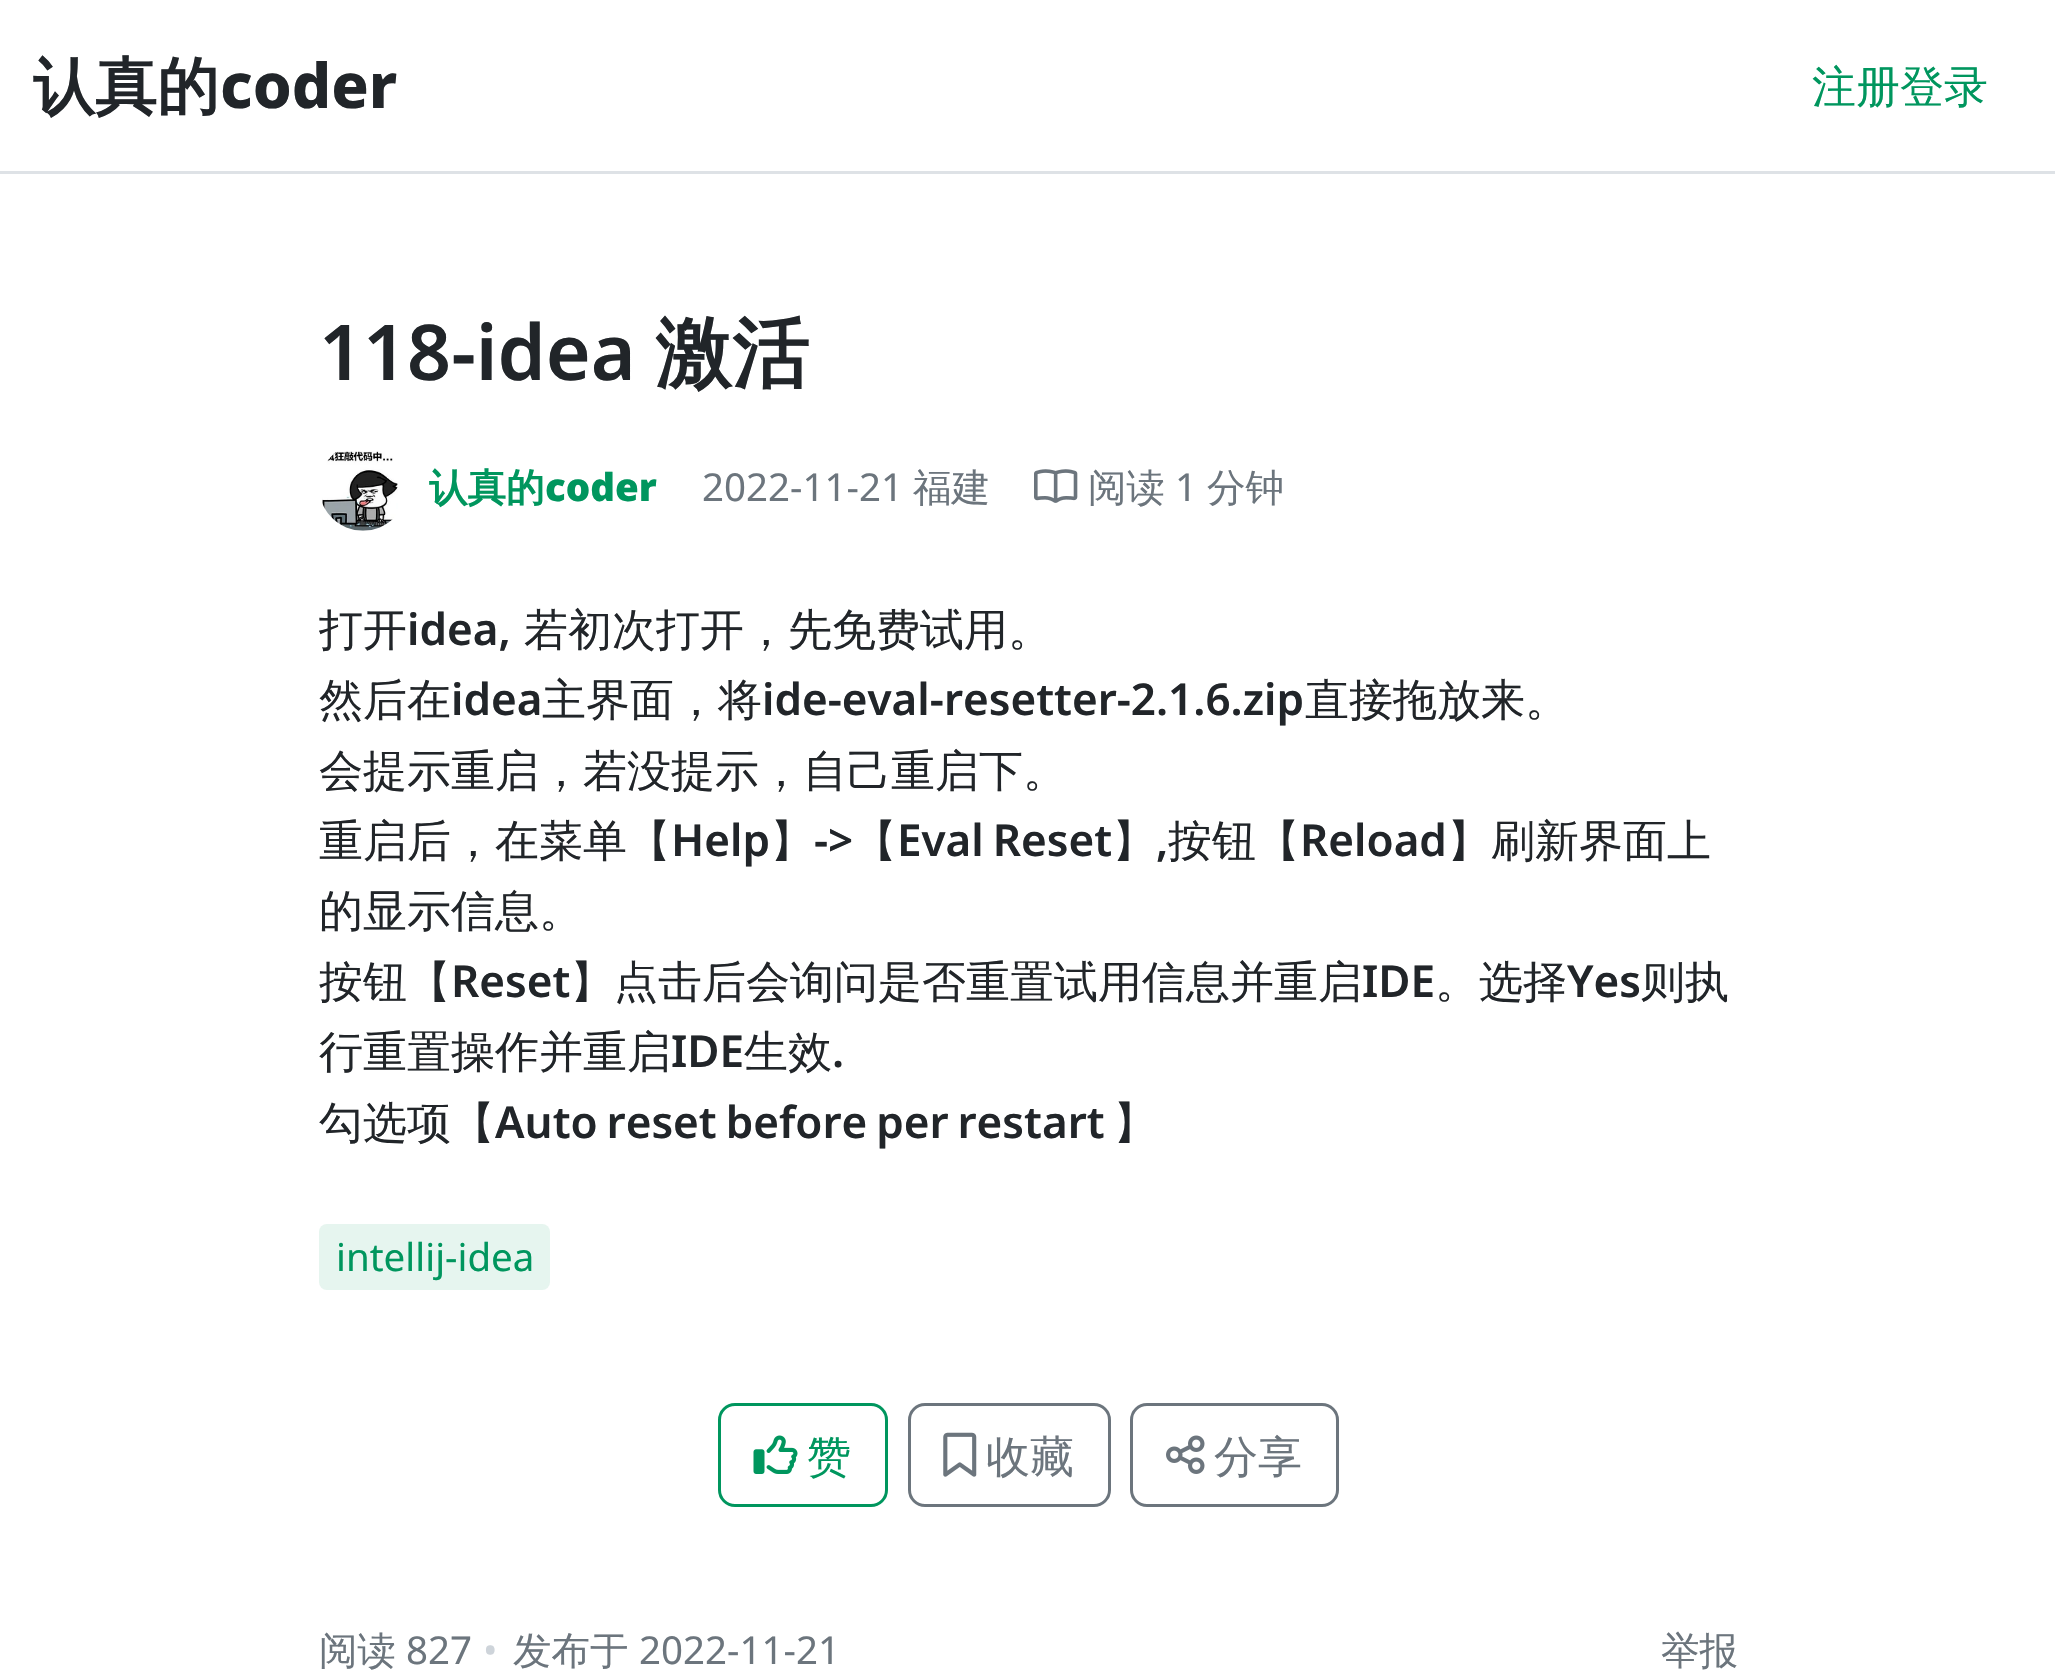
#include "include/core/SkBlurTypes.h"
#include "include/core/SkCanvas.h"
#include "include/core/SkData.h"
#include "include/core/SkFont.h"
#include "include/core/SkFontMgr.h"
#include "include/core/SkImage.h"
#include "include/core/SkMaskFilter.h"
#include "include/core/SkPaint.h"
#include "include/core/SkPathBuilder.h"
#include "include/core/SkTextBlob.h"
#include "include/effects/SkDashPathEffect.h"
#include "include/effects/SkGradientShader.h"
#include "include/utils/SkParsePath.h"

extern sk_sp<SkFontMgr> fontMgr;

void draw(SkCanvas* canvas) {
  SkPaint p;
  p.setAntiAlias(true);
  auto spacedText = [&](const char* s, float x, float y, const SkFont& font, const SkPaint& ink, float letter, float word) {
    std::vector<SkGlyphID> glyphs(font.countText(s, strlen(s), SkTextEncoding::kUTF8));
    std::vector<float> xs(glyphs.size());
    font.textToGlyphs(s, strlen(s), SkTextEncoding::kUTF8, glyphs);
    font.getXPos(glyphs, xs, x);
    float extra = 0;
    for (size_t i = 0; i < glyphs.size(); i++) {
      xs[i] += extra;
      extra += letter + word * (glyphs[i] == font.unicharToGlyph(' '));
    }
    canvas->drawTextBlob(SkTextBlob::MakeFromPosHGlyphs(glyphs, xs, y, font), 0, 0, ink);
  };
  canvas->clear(SK_ColorWHITE);
  p.setColor(SkColorSetRGB(222, 226, 230));
  canvas->drawRect(SkRect::MakeLTRB(0, 171, 2055, 174), p);
  canvas->drawImageRect(SkImages::DeferredFromEncodedData(SkData::MakeFromFileName("images/1.png")), SkRect::MakeLTRB(322, 451, 398, 531), SkSamplingOptions());
  canvas->drawImageRect(SkImages::DeferredFromEncodedData(SkData::MakeFromFileName("images/2.png")), SkRect::MakeLTRB(1034, 469, 1078, 503), SkSamplingOptions());
  p.setColor(SkColorSetRGB(230, 245, 239));
  canvas->drawRoundRect(SkRect::MakeLTRB(319, 1224, 550, 1290), 8, 8, p);
  p.setStyle(SkPaint::kStroke_Style);
  p.setStrokeWidth(3);
  p.setColor(SkColorSetRGB(0, 150, 94));
  canvas->drawRoundRect(SkRect::MakeLTRB(719.5f, 1404.5f, 886.5f, 1505.5f), 15.5f, 15.5f, p);
  canvas->drawImageRect(SkImages::DeferredFromEncodedData(SkData::MakeFromFileName("images/3.png")), SkRect::MakeLTRB(753, 1435, 798, 1474), SkSamplingOptions());
  p.setColor(SkColorSetRGB(108, 117, 125));
  canvas->drawRoundRect(SkRect::MakeLTRB(909.5f, 1404.5f, 1109.5f, 1505.5f), 15.5f, 15.5f, p);
  canvas->drawImageRect(SkImages::DeferredFromEncodedData(SkData::MakeFromFileName("images/4.png")), SkRect::MakeLTRB(943, 1432, 977, 1477), SkSamplingOptions());
  canvas->drawRoundRect(SkRect::MakeLTRB(1131.5f, 1404.5f, 1337.5f, 1505.5f), 15.5f, 15.5f, p);
  canvas->drawImageRect(SkImages::DeferredFromEncodedData(SkData::MakeFromFileName("images/5.png")), SkRect::MakeLTRB(1166, 1435, 1205, 1474), SkSamplingOptions());
  SkFont font1(fontMgr->matchFamilyStyle("WenQuanYi Zen Hei", SkFontStyle::Bold()), 62);
  font1.setSubpixel(true);
  p.setStyle(SkPaint::kFill_Style);
  p.setColor(SkColorSetRGB(33, 37, 41));
  canvas->drawString("认真的", 33, 108, font1, p);
  SkFont font2(fontMgr->matchFamilyStyle("Noto Sans", SkFontStyle(800, SkFontStyle::kNormal_Width, SkFontStyle::kUpright_Slant)), 62);
  font2.setSubpixel(true);
  canvas->drawString("coder", 220, 108, font2, p);
  SkFont font3(fontMgr->matchFamilyStyle("WenQuanYi Zen Hei", SkFontStyle(500, SkFontStyle::kNormal_Width, SkFontStyle::kUpright_Slant)), 44);
  font3.setSubpixel(true);
  p.setColor(SkColorSetRGB(0, 150, 94));
  canvas->drawString("注册登录", 1812, 102, font3, p);
  SkFont font4(fontMgr->matchFamilyStyle("Noto Sans", SkFontStyle(600, SkFontStyle::kNormal_Width, SkFontStyle::kUpright_Slant)), 77);
  font4.setSubpixel(true);
  p.setColor(SkColorSetRGB(33, 37, 41));
  canvas->drawString("118-idea", 319, 380, font4, p);
  SkFont font5(fontMgr->matchFamilyStyle("WenQuanYi Zen Hei", SkFontStyle::Bold()), 77);
  font5.setSubpixel(true);
  canvas->drawString("激活", 655, 380, font5, p);
  SkFont font6(fontMgr->matchFamilyStyle("WenQuanYi Zen Hei", SkFontStyle::Bold()), 38.5f);
  font6.setSubpixel(true);
  p.setColor(SkColorSetRGB(0, 150, 94));
  canvas->drawString("认真的", 429, 501, font6, p);
  SkFont font7(fontMgr->matchFamilyStyle("Noto Sans", SkFontStyle(900, SkFontStyle::kNormal_Width, SkFontStyle::kUpright_Slant)), 38.5f);
  font7.setSubpixel(true);
  canvas->drawString("coder", 545, 501, font7, p);
  SkFont font8(fontMgr->matchFamilyStyle("Noto Sans", SkFontStyle::Normal()), 38.5f);
  font8.setSubpixel(true);
  p.setColor(SkColorSetRGB(108, 117, 125));
  canvas->drawString("2022-11-21", 702, 501, font8, p);
  SkFont font9(fontMgr->matchFamilyStyle("WenQuanYi Zen Hei", SkFontStyle(500, SkFontStyle::kNormal_Width, SkFontStyle::kUpright_Slant)), 38.5f);
  font9.setSubpixel(true);
  canvas->drawString("福建", 913, 501, font9, p);
  canvas->drawString("阅读", 1088, 501, font9, p);
  canvas->drawString("1", 1175, 501, font8, p);
  canvas->drawString("分钟", 1207, 501, font9, p);
  p.setColor(SkColorSetRGB(33, 37, 41));
  canvas->drawString("打开", 319, 645, font3, p);
  SkFont font10(fontMgr->matchFamilyStyle("Noto Sans", SkFontStyle(600, SkFontStyle::kNormal_Width, SkFontStyle::kUpright_Slant)), 44);
  font10.setSubpixel(true);
  canvas->drawString("idea,", 407, 645, font10, p);
  canvas->drawString("若初次打开，先免费试用。", 524, 645, font3, p);
  canvas->drawString("然后在", 319, 715, font3, p);
  canvas->drawString("idea", 451, 715, font10, p);
  canvas->drawString("主界面，将", 542, 715, font3, p);
  canvas->drawString("ide-eval-resetter-2.1.6.zip", 762, 715, font10, p);
  canvas->drawString("直接拖放来。", 1305, 715, font3, p);
  canvas->drawString("会提示重启，若没提示，自己重启下。", 319, 786, font3, p);
  canvas->drawString("重启后，在菜单【", 319, 856, font3, p);
  canvas->drawString("Help", 671, 856, font10, p);
  canvas->drawString("】", 770, 856, font3, p);
  canvas->drawString("->", 814, 856, font10, p);
  canvas->drawString("【", 853, 856, font3, p);
  spacedText("Eval Reset", 897, 856, font10, p, 0, -2.5f);
  canvas->drawString("】", 1112, 856, font3, p);
  canvas->drawString("按钮【", 1168, 856, font3, p);
  canvas->drawString("Reload", 1300, 856, font10, p);
  canvas->drawString("】刷新界面上", 1447, 856, font3, p);
  canvas->drawString(",", 1156, 856, font10, p);
  canvas->drawString("的显示信息。", 319, 926, font3, p);
  canvas->drawString("按钮【", 319, 997, font3, p);
  canvas->drawString("Reset", 451, 997, font10, p);
  canvas->drawString("】点击后会询问是否重置试用信息并重启", 570, 997, font3, p);
  canvas->drawString("IDE", 1362, 997, font10, p);
  canvas->drawString("。选择", 1435, 997, font3, p);
  canvas->drawString("Yes", 1567, 997, font10, p);
  canvas->drawString("则执", 1641, 997, font3, p);
  canvas->drawString("行重置操作并重启", 319, 1067, font3, p);
  canvas->drawString("IDE", 671, 1067, font10, p);
  canvas->drawString("生效", 744, 1067, font3, p);
  canvas->drawString(".", 832, 1067, font10, p);
  canvas->drawString("勾选项【", 319, 1138, font3, p);
  spacedText("Auto reset before per restart", 495, 1138, font10, p, 0, -2.5f);
  canvas->drawString("】", 1113, 1138, font3, p);
  p.setColor(SkColorSetRGB(0, 150, 94));
  canvas->drawString("intellij-idea", 336, 1271, font8, p);
  canvas->drawString("赞", 807, 1472, font3, p);
  p.setColor(SkColorSetRGB(108, 117, 125));
  canvas->drawString("收藏", 986, 1472, font3, p);
  canvas->drawString("分享", 1214, 1472, font3, p);
  canvas->drawString("阅读", 319, 1664, font9, p);
  canvas->drawString("827", 406, 1664, font8, p);
  p.setColor(SkColorSetRGB(206, 212, 218));
  canvas->drawString("•", 483, 1664, font8, p);
  p.setColor(SkColorSetRGB(108, 117, 125));
  canvas->drawString("发布于", 513, 1664, font9, p);
  canvas->drawString("2022-11-21", 639, 1664, font8, p);
  canvas->drawString("举报", 1661, 1664, font9, p);
}
